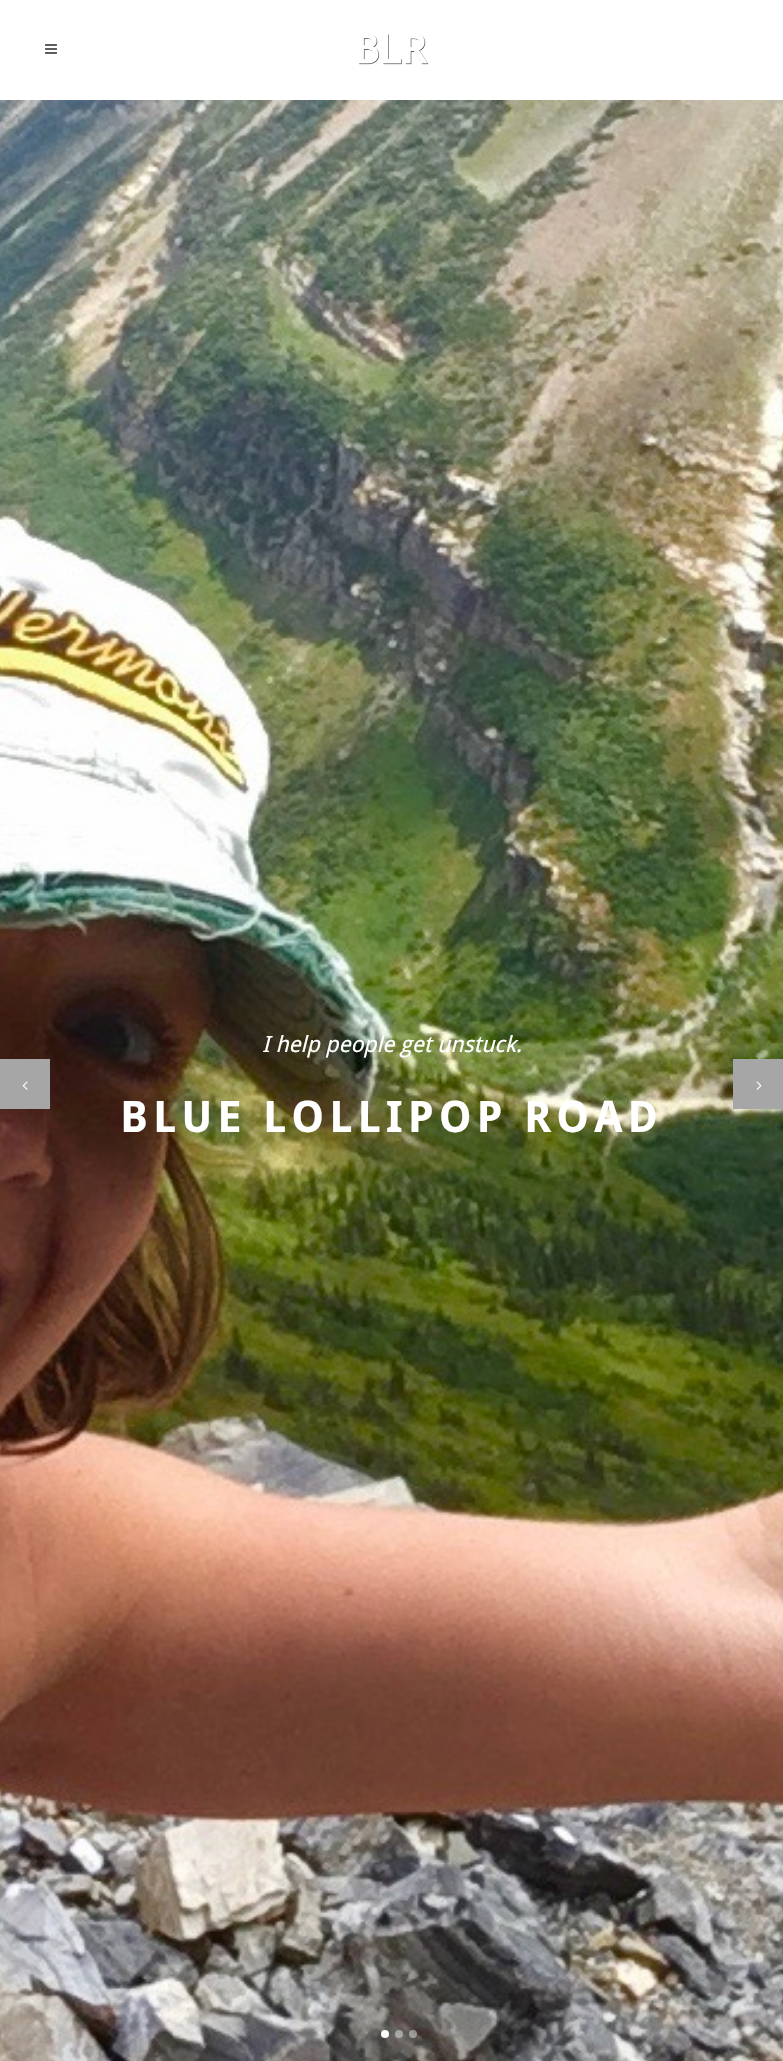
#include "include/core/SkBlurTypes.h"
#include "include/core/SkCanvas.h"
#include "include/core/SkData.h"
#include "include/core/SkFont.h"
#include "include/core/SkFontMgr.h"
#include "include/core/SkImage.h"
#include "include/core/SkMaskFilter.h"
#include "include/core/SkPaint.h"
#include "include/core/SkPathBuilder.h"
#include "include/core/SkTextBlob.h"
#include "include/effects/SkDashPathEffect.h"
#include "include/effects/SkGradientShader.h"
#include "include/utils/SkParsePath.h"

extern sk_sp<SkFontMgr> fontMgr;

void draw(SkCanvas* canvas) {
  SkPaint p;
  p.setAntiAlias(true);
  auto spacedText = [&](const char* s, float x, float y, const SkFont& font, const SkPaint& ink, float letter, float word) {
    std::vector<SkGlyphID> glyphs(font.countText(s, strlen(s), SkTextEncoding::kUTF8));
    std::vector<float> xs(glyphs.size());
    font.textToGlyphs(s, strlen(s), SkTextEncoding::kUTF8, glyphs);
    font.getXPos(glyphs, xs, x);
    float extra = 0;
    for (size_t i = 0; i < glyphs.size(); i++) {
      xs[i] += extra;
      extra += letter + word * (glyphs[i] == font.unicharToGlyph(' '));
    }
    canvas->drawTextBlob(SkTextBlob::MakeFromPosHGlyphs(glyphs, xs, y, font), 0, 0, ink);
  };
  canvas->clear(SK_ColorWHITE);
  canvas->drawImageRect(SkImages::DeferredFromEncodedData(SkData::MakeFromFileName("images/1.png")), SkRect::MakeLTRB(45, 44, 57, 54), SkSamplingOptions());
  canvas->drawImageRect(SkImages::DeferredFromEncodedData(SkData::MakeFromFileName("images/2.png")), SkRect::MakeLTRB(359, 34, 429, 65), SkSamplingOptions());
  canvas->drawImageRect(SkImages::DeferredFromEncodedData(SkData::MakeFromFileName("images/4.png")), SkRect::MakeLTRB(0, 100, 783, 2061), SkSamplingOptions());
  p.setColor(SkColorSetRGB(166, 166, 166));
  canvas->drawRect(SkRect::MakeLTRB(0, 1059, 50, 1109), p);
  canvas->drawImageRect(SkImages::DeferredFromEncodedData(SkData::MakeFromFileName("images/3.png")), SkRect::MakeLTRB(22, 1081, 28, 1090), SkSamplingOptions());
  canvas->drawRect(SkRect::MakeLTRB(733, 1059, 783, 1109), p);
  canvas->drawImageRect(SkImages::DeferredFromEncodedData(SkData::MakeFromFileName("images/5.png")), SkRect::MakeLTRB(756, 1081, 762, 1090), SkSamplingOptions());
  p.setColor(SK_ColorWHITE);
  canvas->drawCircle(385, 2034, 4, p);
  p.setColor(SkColorSetARGB(102, 255, 255, 255));
  canvas->drawCircle(399, 2034, 4, p);
  canvas->drawCircle(413, 2034, 4, p);
  SkFont font1(fontMgr->matchFamilyStyle("Droid Sans", SkFontStyle::Italic()), 22.4f);
  font1.setSubpixel(true);
  p.setColor(SK_ColorWHITE);
  canvas->drawString("I help people get unstuck.", 262, 1052, font1, p);
  SkFont font2(fontMgr->matchFamilyStyle("Droid Sans", SkFontStyle::Bold()), 43.5f);
  font2.setSubpixel(true);
  spacedText("BLUE LOLLIPOP ROAD", 120, 1132, font2, p, 5, 0);
}
